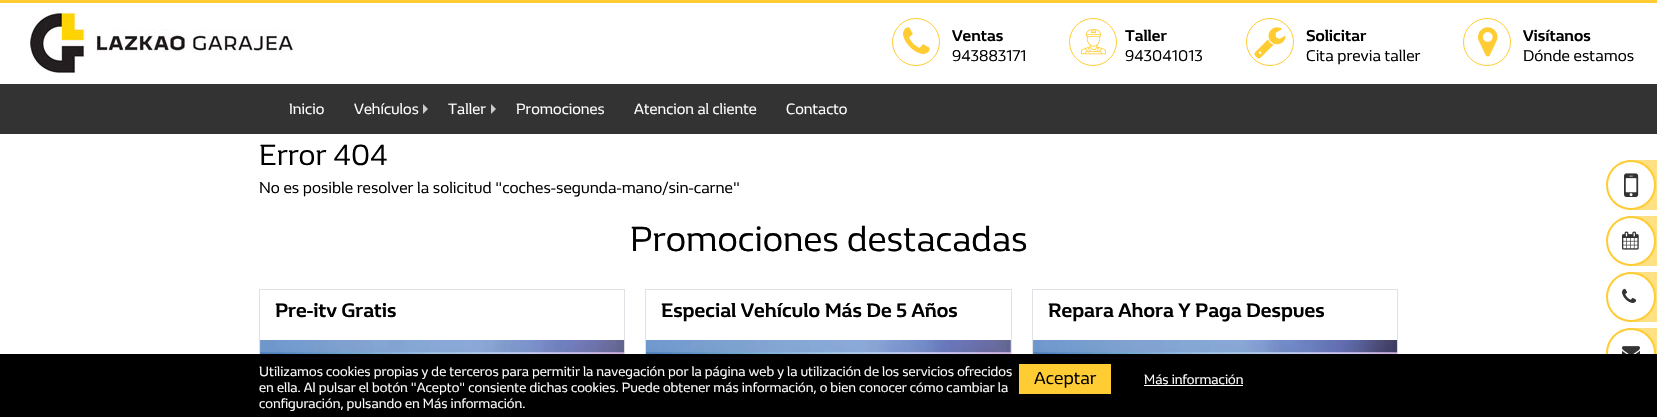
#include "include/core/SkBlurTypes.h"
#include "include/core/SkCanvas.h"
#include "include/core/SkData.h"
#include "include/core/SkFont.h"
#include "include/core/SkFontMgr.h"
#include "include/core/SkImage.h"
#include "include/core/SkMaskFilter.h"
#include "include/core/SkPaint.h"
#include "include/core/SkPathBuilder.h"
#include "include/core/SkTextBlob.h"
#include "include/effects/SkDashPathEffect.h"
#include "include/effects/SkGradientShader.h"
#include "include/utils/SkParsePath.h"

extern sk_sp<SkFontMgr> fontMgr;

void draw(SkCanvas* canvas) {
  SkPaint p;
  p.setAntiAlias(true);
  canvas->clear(SK_ColorWHITE);
  p.setColor(SkColorSetRGB(255, 204, 51));
  canvas->drawRect(SkRect::MakeLTRB(0, 0, 1657, 3), p);
  canvas->drawImageRect(SkImages::DeferredFromEncodedData(SkData::MakeFromFileName("images/1.png")), SkRect::MakeLTRB(30, 13, 293, 73), SkSamplingOptions());
  p.setStyle(SkPaint::kStroke_Style);
  p.setStrokeWidth(1);
  canvas->drawCircle(916, 42, 23.5f, p);
  canvas->drawImageRect(SkImages::DeferredFromEncodedData(SkData::MakeFromFileName("images/2.png")), SkRect::MakeLTRB(903, 27, 930, 54), SkSamplingOptions());
  canvas->drawCircle(1093, 42, 23.5f, p);
  canvas->drawImageRect(SkImages::DeferredFromEncodedData(SkData::MakeFromFileName("images/3.png")), SkRect::MakeLTRB(1081, 29, 1106, 55), SkSamplingOptions());
  canvas->drawCircle(1270, 42, 23.5f, p);
  canvas->drawImageRect(SkImages::DeferredFromEncodedData(SkData::MakeFromFileName("images/4.png")), SkRect::MakeLTRB(1254, 27, 1286, 59), SkSamplingOptions());
  canvas->drawCircle(1487, 42, 23.5f, p);
  canvas->drawImageRect(SkImages::DeferredFromEncodedData(SkData::MakeFromFileName("images/5.png")), SkRect::MakeLTRB(1478, 27, 1498, 57), SkSamplingOptions());
  p.setStyle(SkPaint::kFill_Style);
  p.setColor(SkColorSetRGB(51, 51, 51));
  canvas->drawRect(SkRect::MakeLTRB(0, 84, 1657, 134), p);
  p.setColor(SkColorSetRGB(204, 204, 204));
  canvas->drawPath(SkPathBuilder().moveTo(423, 114).lineTo(423, 104).lineTo(428, 109).close().detach(), p);
  canvas->drawPath(SkPathBuilder().moveTo(491, 114).lineTo(491, 104).lineTo(496, 109).close().detach(), p);
  p.setColor(SkColorSetRGB(255, 224, 130));
  canvas->drawRect(SkRect::MakeLTRB(1627, 160, 1657, 210), p);
  p.setColor(SK_ColorWHITE);
  canvas->drawCircle(1631, 185, 24, p);
  p.setStyle(SkPaint::kStroke_Style);
  p.setStrokeWidth(2);
  p.setColor(SkColorSetRGB(255, 204, 51));
  canvas->drawCircle(1631, 185, 24, p);
  canvas->drawImageRect(SkImages::DeferredFromEncodedData(SkData::MakeFromFileName("images/6.png")), SkRect::MakeLTRB(1624, 173, 1639, 197), SkSamplingOptions());
  p.setStyle(SkPaint::kFill_Style);
  p.setColor(SkColorSetRGB(255, 224, 130));
  canvas->drawRect(SkRect::MakeLTRB(1627, 216, 1657, 266), p);
  p.setColor(SK_ColorWHITE);
  canvas->drawCircle(1631, 241, 24, p);
  p.setStyle(SkPaint::kStroke_Style);
  p.setColor(SkColorSetRGB(255, 204, 51));
  canvas->drawCircle(1631, 241, 24, p);
  canvas->drawImageRect(SkImages::DeferredFromEncodedData(SkData::MakeFromFileName("images/7.png")), SkRect::MakeLTRB(1622, 231, 1639, 250), SkSamplingOptions());
  p.setStyle(SkPaint::kFill_Style);
  p.setColor(SkColorSetRGB(255, 224, 130));
  canvas->drawRect(SkRect::MakeLTRB(1627, 272, 1657, 322), p);
  p.setColor(SK_ColorWHITE);
  canvas->drawCircle(1631, 297, 24, p);
  p.setStyle(SkPaint::kStroke_Style);
  p.setColor(SkColorSetRGB(255, 204, 51));
  canvas->drawCircle(1631, 297, 24, p);
  canvas->drawImageRect(SkImages::DeferredFromEncodedData(SkData::MakeFromFileName("images/8.png")), SkRect::MakeLTRB(1622, 288, 1637, 303), SkSamplingOptions());
  p.setStyle(SkPaint::kFill_Style);
  p.setColor(SkColorSetRGB(255, 224, 130));
  canvas->drawRect(SkRect::MakeLTRB(1627, 328, 1657, 354), p);
  p.setColor(SK_ColorWHITE);
  canvas->drawCircle(1631, 353, 24, p);
  p.setStyle(SkPaint::kStroke_Style);
  p.setColor(SkColorSetRGB(255, 204, 51));
  canvas->drawCircle(1631, 353, 24, p);
  canvas->drawImageRect(SkImages::DeferredFromEncodedData(SkData::MakeFromFileName("images/9.png")), SkRect::MakeLTRB(1622, 346, 1640, 354), SkSamplingOptions());
  p.setStrokeWidth(1);
  p.setColor(SkColorSetRGB(222, 226, 230));
  canvas->drawRect(SkRect::MakeLTRB(259.5f, 289.5f, 624.5f, 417.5f), p);
  canvas->drawImageRect(SkImages::DeferredFromEncodedData(SkData::MakeFromFileName("images/10.png")), SkRect::MakeLTRB(260, 340, 625, 354), SkSamplingOptions());
  canvas->drawRect(SkRect::MakeLTRB(645.5f, 289.5f, 1011.5f, 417.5f), p);
  canvas->drawImageRect(SkImages::DeferredFromEncodedData(SkData::MakeFromFileName("images/11.png")), SkRect::MakeLTRB(646, 340, 1011, 354), SkSamplingOptions());
  canvas->drawRect(SkRect::MakeLTRB(1032.5f, 289.5f, 1397.5f, 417.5f), p);
  canvas->drawImageRect(SkImages::DeferredFromEncodedData(SkData::MakeFromFileName("images/12.png")), SkRect::MakeLTRB(1033, 340, 1398, 354), SkSamplingOptions());
  p.setStyle(SkPaint::kFill_Style);
  p.setColor(SK_ColorBLACK);
  canvas->drawRect(SkRect::MakeLTRB(0, 354, 1657, 417), p);
  p.setColor(SkColorSetRGB(255, 204, 51));
  canvas->drawRect(SkRect::MakeLTRB(1019, 364, 1111, 394), p);
  p.setColor(SK_ColorWHITE);
  canvas->drawRect(SkRect::MakeLTRB(1144, 385, 1243, 386), p);
  SkFont font1(fontMgr->matchFamilyStyle("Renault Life", SkFontStyle::Bold()), 16);
  font1.setSubpixel(true);
  p.setColor(SK_ColorBLACK);
  canvas->drawString("Ventas", 952, 41, font1, p);
  SkFont font2(fontMgr->matchFamilyStyle("Renault Life", SkFontStyle::Normal()), 16);
  font2.setSubpixel(true);
  canvas->drawString("943883171", 952, 61, font2, p);
  canvas->drawString("Taller", 1125, 41, font1, p);
  canvas->drawString("943041013", 1125, 61, font2, p);
  canvas->drawString("Solicitar", 1306, 41, font1, p);
  canvas->drawString("Cita previa taller", 1306, 61, font2, p);
  canvas->drawString("Visítanos", 1523, 41, font1, p);
  canvas->drawString("Dónde estamos", 1523, 61, font2, p);
  SkFont font3(fontMgr->matchFamilyStyle("Renault Life", SkFontStyle::Normal()), 15.25f);
  font3.setSubpixel(true);
  p.setColor(SK_ColorWHITE);
  canvas->drawString("Inicio", 289, 114, font3, p);
  canvas->drawString("Vehículos", 354, 114, font3, p);
  canvas->drawString("Taller", 448, 114, font3, p);
  canvas->drawString("Promociones", 516, 114, font3, p);
  canvas->drawString("Atencion al cliente", 634, 114, font3, p);
  canvas->drawString("Contacto", 786, 114, font3, p);
  SkFont font4(fontMgr->matchFamilyStyle("Renault Life", SkFontStyle::Normal()), 30);
  font4.setSubpixel(true);
  p.setColor(SK_ColorBLACK);
  canvas->drawString("Error 404", 259, 165, font4, p);
  canvas->drawString("No es posible resolver la solicitud \"coches-segunda-mano/sin-carne\"", 259, 193, font2, p);
  SkFont font5(fontMgr->matchFamilyStyle("Renault Life", SkFontStyle::Normal()), 36);
  font5.setSubpixel(true);
  canvas->drawString("Promociones destacadas", 630, 251, font5, p);
  SkFont font6(fontMgr->matchFamilyStyle("Renault Life", SkFontStyle::Bold()), 20);
  font6.setSubpixel(true);
  canvas->drawString("Pre-itv Gratis", 275, 317, font6, p);
  canvas->drawString("Especial Vehículo Más De 5 Años", 661, 317, font6, p);
  canvas->drawString("Repara Ahora Y Paga Despues", 1048, 317, font6, p);
  SkFont font7(fontMgr->matchFamilyStyle("Renault Life", SkFontStyle::Normal()), 13.6f);
  font7.setSubpixel(true);
  p.setColor(SK_ColorWHITE);
  canvas->drawString("Utilizamos cookies propias y de terceros para permitir la navegación por la página web y la utilización de los servicios ofrecidos", 259, 376, font7, p);
  canvas->drawString("en ella. Al pulsar el botón \"Acepto\" consiente dichas cookies. Puede obtener más información, o bien conocer cómo cambiar la", 259, 392, font7, p);
  canvas->drawString("configuración, pulsando en Más información.", 259, 408, font7, p);
  SkFont font8(fontMgr->matchFamilyStyle("Renault Life", SkFontStyle::Normal()), 18);
  font8.setSubpixel(true);
  p.setColor(SK_ColorBLACK);
  canvas->drawString("Aceptar", 1034, 384, font8, p);
  p.setColor(SK_ColorWHITE);
  canvas->drawString("Más información", 1144, 384, font7, p);
}
